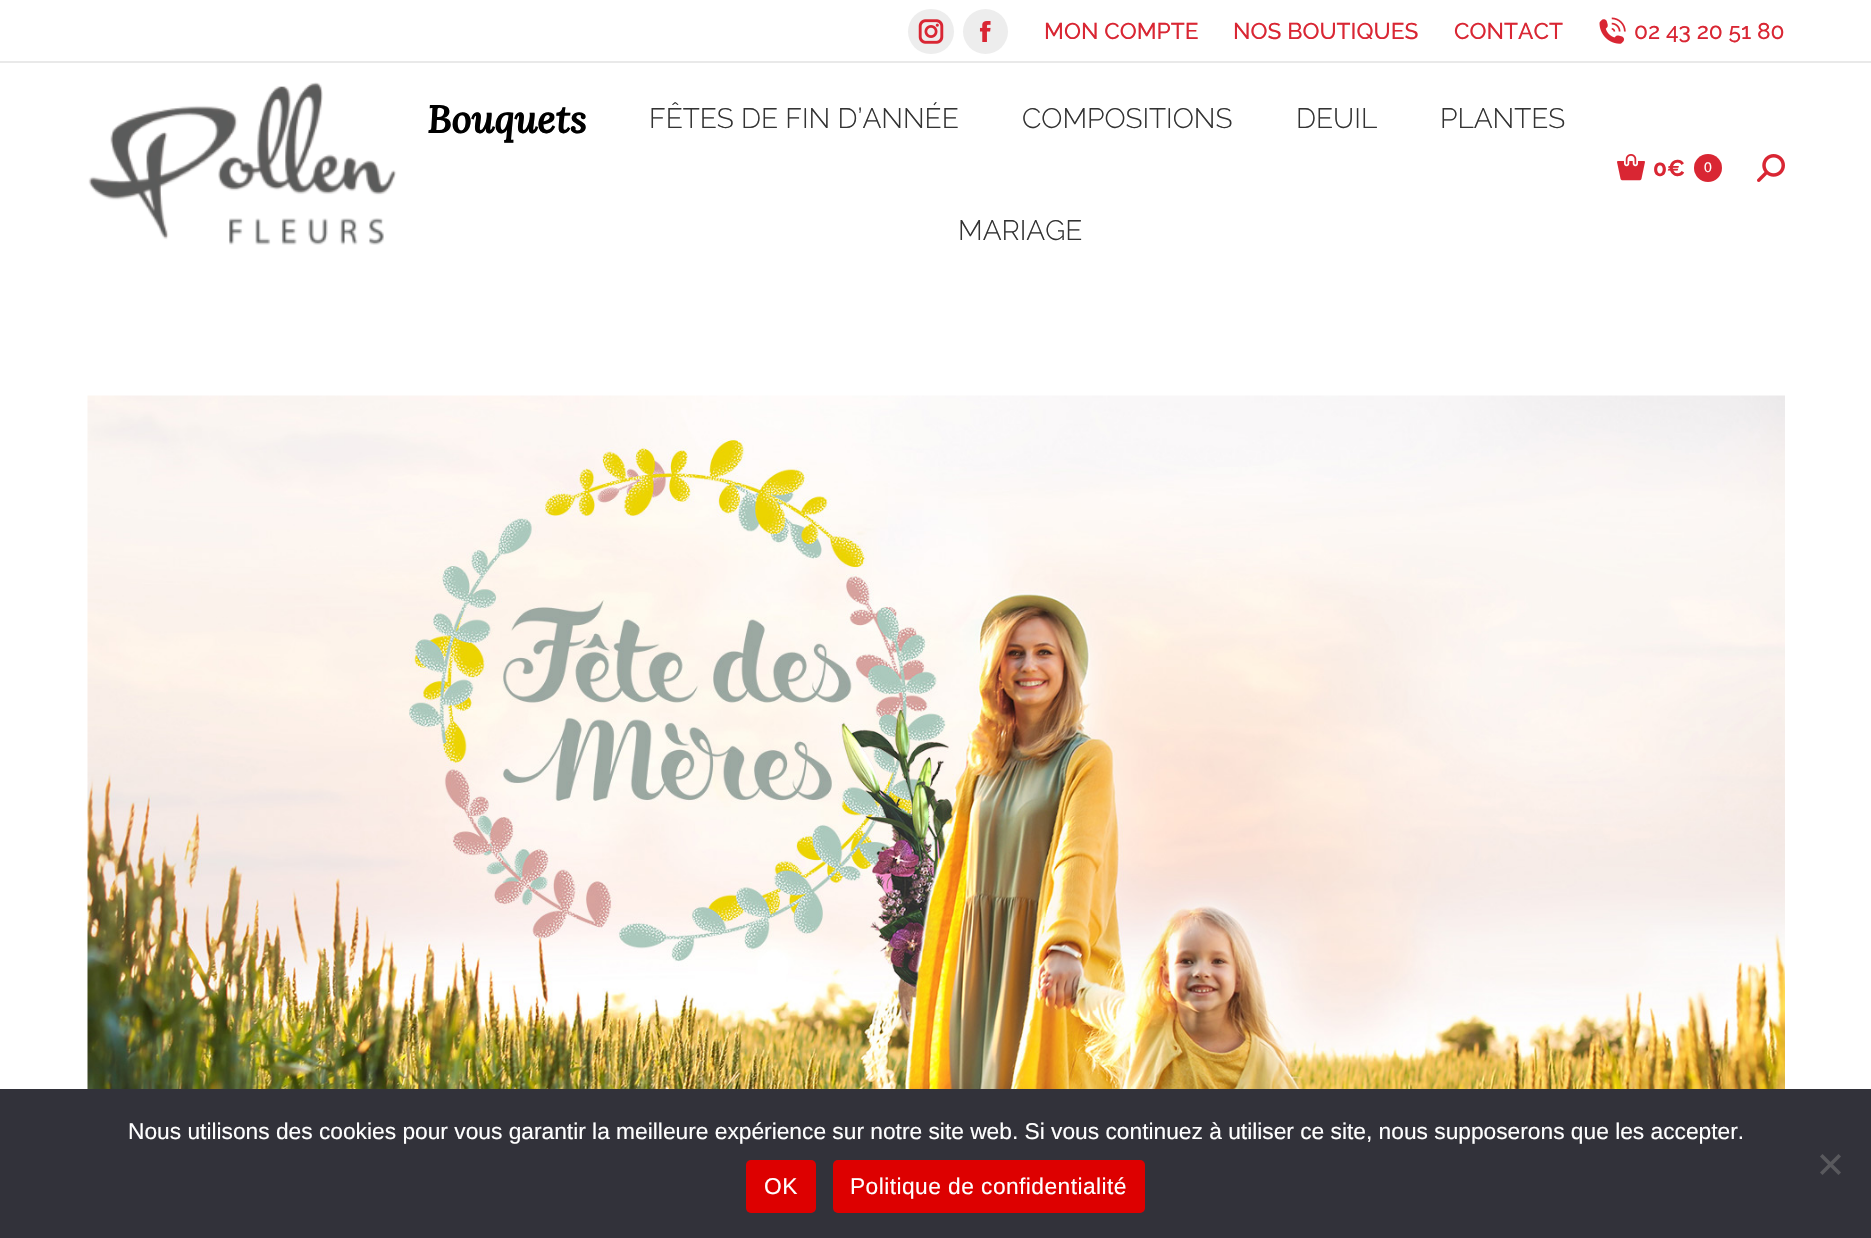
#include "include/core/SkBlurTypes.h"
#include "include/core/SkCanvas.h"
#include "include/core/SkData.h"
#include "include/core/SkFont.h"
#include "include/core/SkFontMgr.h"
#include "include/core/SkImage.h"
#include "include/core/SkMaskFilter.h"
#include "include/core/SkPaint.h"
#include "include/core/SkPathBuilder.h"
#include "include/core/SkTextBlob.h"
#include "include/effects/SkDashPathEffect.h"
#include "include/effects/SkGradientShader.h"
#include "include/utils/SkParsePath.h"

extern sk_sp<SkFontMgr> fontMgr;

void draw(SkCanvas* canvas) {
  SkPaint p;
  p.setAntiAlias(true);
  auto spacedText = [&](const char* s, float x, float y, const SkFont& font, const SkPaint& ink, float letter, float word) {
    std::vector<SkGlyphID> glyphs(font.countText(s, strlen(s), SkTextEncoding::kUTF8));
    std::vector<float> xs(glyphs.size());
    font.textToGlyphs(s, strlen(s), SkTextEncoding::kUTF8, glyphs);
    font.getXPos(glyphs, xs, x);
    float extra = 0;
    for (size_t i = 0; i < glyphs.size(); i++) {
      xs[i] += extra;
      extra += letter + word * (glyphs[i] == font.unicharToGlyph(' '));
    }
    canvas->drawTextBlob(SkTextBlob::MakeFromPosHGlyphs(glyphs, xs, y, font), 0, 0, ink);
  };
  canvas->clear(SK_ColorWHITE);
  p.setColor(SkColorSetRGB(237, 237, 237));
  canvas->drawRoundRect(SkRect::MakeLTRB(908, 9, 954, 54), 22.5f, 22.5f, p);
  canvas->drawImageRect(SkImages::DeferredFromEncodedData(SkData::MakeFromFileName("images/1.png")), SkRect::MakeLTRB(918, 19, 944, 44), SkSamplingOptions());
  canvas->drawCircle(985.5f, 31.5f, 22.5f, p);
  canvas->drawImageRect(SkImages::DeferredFromEncodedData(SkData::MakeFromFileName("images/2.png")), SkRect::MakeLTRB(979, 21, 991, 42), SkSamplingOptions());
  canvas->drawImageRect(SkImages::DeferredFromEncodedData(SkData::MakeFromFileName("images/3.png")), SkRect::MakeLTRB(1599, 17, 1626, 44), SkSamplingOptions());
  p.setColor(SkColorSetRGB(233, 233, 233));
  canvas->drawRect(SkRect::MakeLTRB(0, 61, 1871, 63), p);
  canvas->drawImageRect(SkImages::DeferredFromEncodedData(SkData::MakeFromFileName("images/4.png")), SkRect::MakeLTRB(88, 82, 397, 245), SkSamplingOptions());
  canvas->drawImageRect(SkImages::DeferredFromEncodedData(SkData::MakeFromFileName("images/5.png")), SkRect::MakeLTRB(1617, 154, 1645, 181), SkSamplingOptions());
  p.setColor(SkColorSetRGB(217, 38, 51));
  canvas->drawCircle(1708, 168, 14, p);
  canvas->drawImageRect(SkImages::DeferredFromEncodedData(SkData::MakeFromFileName("images/6.png")), SkRect::MakeLTRB(1757, 154, 1785, 182), SkSamplingOptions());
  canvas->drawImageRect(SkImages::DeferredFromEncodedData(SkData::MakeFromFileName("images/7.png")), SkRect::MakeLTRB(87, 395, 1785, 1089), SkSamplingOptions());
  p.setColor(SkColorSetRGB(50, 50, 58));
  canvas->drawRect(SkRect::MakeLTRB(0, 1089, 1871, 1238), p);
  p.setColor(SkColorSetRGB(89, 89, 93));
  canvas->drawPath(SkPathBuilder().moveTo(1838.5f, 1154).lineTo(1841, 1156.5f).lineTo(1822.5f, 1175).lineTo(1820, 1172.5f).close().detach(), p);
  canvas->drawPath(SkPathBuilder().moveTo(1820, 1156.5f).lineTo(1822.5f, 1154).lineTo(1841, 1172.5f).lineTo(1838.5f, 1175).close().detach(), p);
  p.setColor(SkColorSetRGB(221, 0, 0));
  canvas->drawRoundRect(SkRect::MakeLTRB(746, 1160, 816, 1213), 5, 5, p);
  canvas->drawRoundRect(SkRect::MakeLTRB(833, 1160, 1145, 1213), 5, 5, p);
  SkFont font1(fontMgr->matchFamilyStyle("Raleway", SkFontStyle(500, SkFontStyle::kNormal_Width, SkFontStyle::kUpright_Slant)), 22.75f);
  font1.setSubpixel(true);
  p.setColor(SkColorSetRGB(217, 38, 51));
  canvas->drawString("MON COMPTE", 1044, 39, font1, p);
  canvas->drawString("NOS BOUTIQUES", 1233, 39, font1, p);
  canvas->drawString("CONTACT", 1454, 39, font1, p);
  canvas->drawString("02 43 20 51 80", 1634, 39, font1, p);
  SkFont font2(fontMgr->matchFamilyStyle("Lora", SkFontStyle::BoldItalic()), 38.5f);
  font2.setSubpixel(true);
  p.setColor(SK_ColorBLACK);
  canvas->drawString("Bouquets", 427, 133, font2, p);
  SkFont font3(fontMgr->matchFamilyStyle("Raleway", SkFontStyle(300, SkFontStyle::kNormal_Width, SkFontStyle::kUpright_Slant)), 28);
  font3.setSubpixel(true);
  p.setColor(SkColorSetRGB(51, 51, 51));
  canvas->drawString("FÊTES DE FIN D’ANNÉE", 649, 128, font3, p);
  canvas->drawString("COMPOSITIONS", 1022, 128, font3, p);
  canvas->drawString("DEUIL", 1296, 128, font3, p);
  canvas->drawString("PLANTES", 1440, 128, font3, p);
  canvas->drawString("MARIAGE", 958, 240, font3, p);
  SkFont font4(fontMgr->matchFamilyStyle("Raleway", SkFontStyle::Bold()), 22.75f);
  font4.setSubpixel(true);
  p.setColor(SkColorSetRGB(217, 38, 51));
  canvas->drawString("0€", 1653, 176, font4, p);
  SkFont font5(fontMgr->matchFamilyStyle("Liberation Sans", SkFontStyle::Normal()), 14);
  font5.setSubpixel(true);
  p.setColor(SK_ColorWHITE);
  canvas->drawString("0", 1704, 172, font5, p);
  SkFont font6(fontMgr->matchFamilyStyle("Liberation Sans", SkFontStyle::Normal()), 22.75f);
  font6.setSubpixel(true);
  canvas->drawString("Nous utilisons des cookies pour vous garantir la meilleure expérience sur notre site web. Si vous continuez à utiliser ce site, nous supposerons que les accepter.", 128, 1139, font6, p);
  spacedText("OK", 764, 1194, font6, p, 0.45f, 0);
  spacedText("Politique de confidentialité", 850, 1194, font6, p, 0.45f, 0);
}
